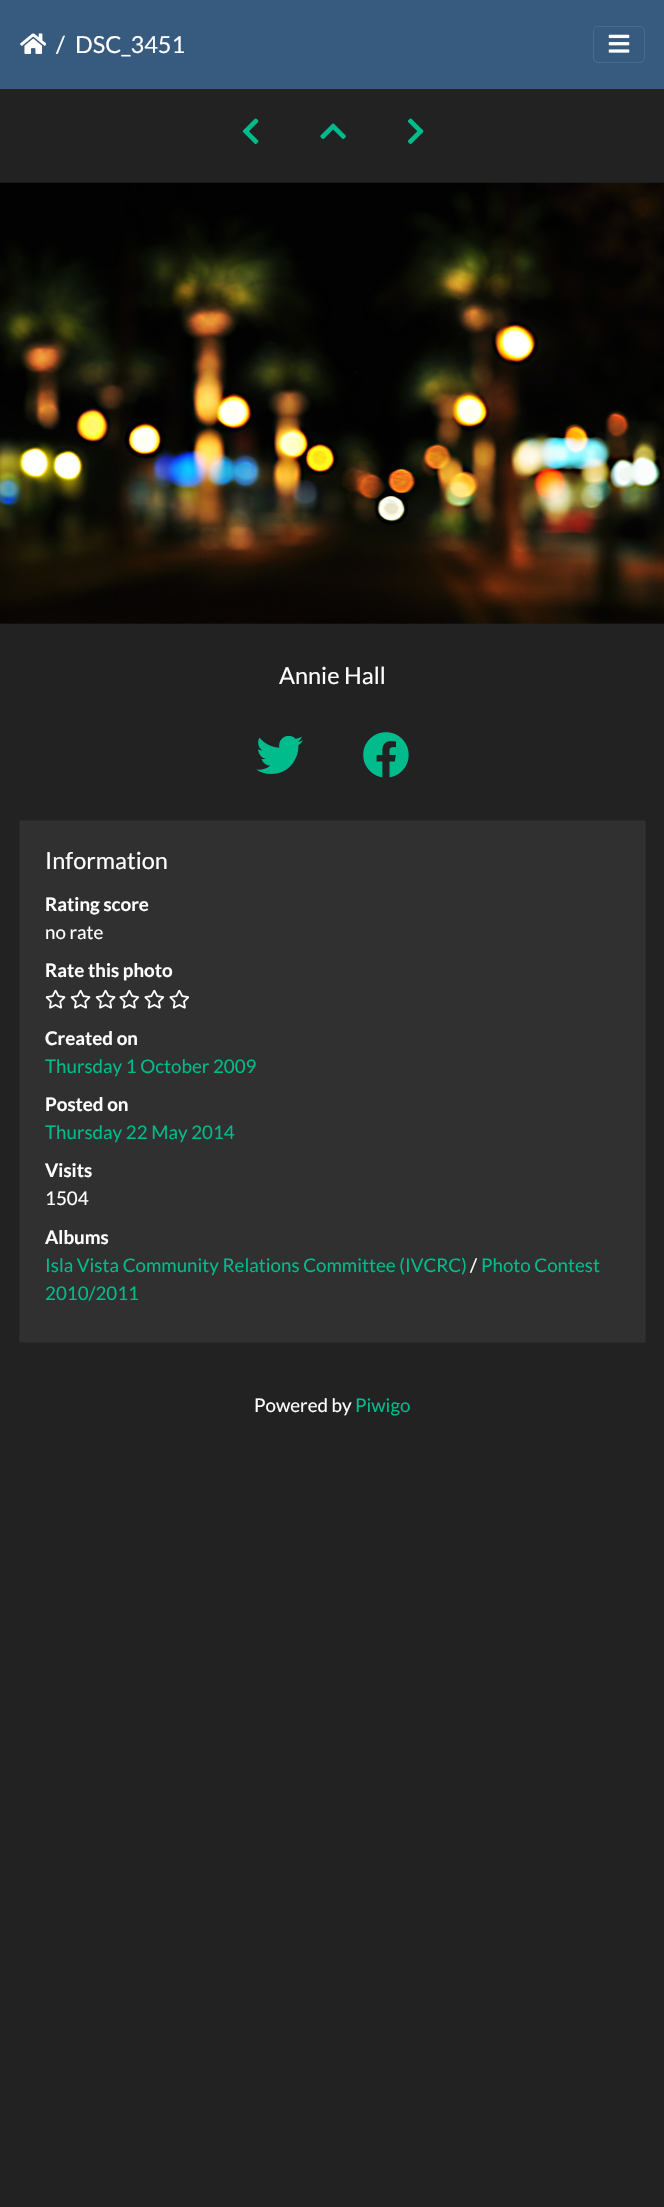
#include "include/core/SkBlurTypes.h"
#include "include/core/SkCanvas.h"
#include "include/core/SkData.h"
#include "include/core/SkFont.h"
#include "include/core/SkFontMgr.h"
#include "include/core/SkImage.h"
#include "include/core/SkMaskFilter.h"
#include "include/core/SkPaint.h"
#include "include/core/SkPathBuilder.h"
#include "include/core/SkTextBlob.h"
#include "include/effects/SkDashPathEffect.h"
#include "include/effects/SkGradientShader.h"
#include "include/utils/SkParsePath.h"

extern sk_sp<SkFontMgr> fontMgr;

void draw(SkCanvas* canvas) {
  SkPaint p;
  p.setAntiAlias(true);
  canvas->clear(SkColorSetRGB(34, 34, 34));
  p.setColor(SkColorSetRGB(55, 90, 127));
  canvas->drawRect(SkRect::MakeLTRB(0, 0, 664, 89), p);
  canvas->drawImageRect(SkImages::DeferredFromEncodedData(SkData::MakeFromFileName("images/1.png")), SkRect::MakeLTRB(20, 33, 46, 54), SkSamplingOptions());
  p.setStyle(SkPaint::kStroke_Style);
  p.setStrokeWidth(1);
  p.setColor(SkColorSetRGB(75, 107, 140));
  canvas->drawRoundRect(SkRect::MakeLTRB(593.5f, 26.5f, 644.5f, 62.5f), 4.5f, 4.5f, p);
  canvas->drawImageRect(SkImages::DeferredFromEncodedData(SkData::MakeFromFileName("images/2.png")), SkRect::MakeLTRB(608, 34, 630, 53), SkSamplingOptions());
  canvas->drawImageRect(SkImages::DeferredFromEncodedData(SkData::MakeFromFileName("images/3.png")), SkRect::MakeLTRB(242, 118, 259, 144), SkSamplingOptions());
  canvas->drawImageRect(SkImages::DeferredFromEncodedData(SkData::MakeFromFileName("images/4.png")), SkRect::MakeLTRB(320, 123, 346, 139), SkSamplingOptions());
  canvas->drawImageRect(SkImages::DeferredFromEncodedData(SkData::MakeFromFileName("images/5.png")), SkRect::MakeLTRB(407, 118, 424, 144), SkSamplingOptions());
  canvas->drawImageRect(SkImages::DeferredFromEncodedData(SkData::MakeFromFileName("images/6.png")), SkRect::MakeLTRB(0, 182, 664, 624), SkSamplingOptions());
  canvas->drawImageRect(SkImages::DeferredFromEncodedData(SkData::MakeFromFileName("images/7.png")), SkRect::MakeLTRB(256, 735, 303, 774), SkSamplingOptions());
  canvas->drawImageRect(SkImages::DeferredFromEncodedData(SkData::MakeFromFileName("images/8.png")), SkRect::MakeLTRB(363, 732, 409, 778), SkSamplingOptions());
  p.setStyle(SkPaint::kFill_Style);
  p.setColor(SkColorSetRGB(48, 48, 48));
  canvas->drawRoundRect(SkRect::MakeLTRB(19, 820, 646, 1343), 2.5f, 2.5f, p);
  p.setStyle(SkPaint::kStroke_Style);
  p.setColor(SkColorSetARGB(31, 0, 0, 0));
  canvas->drawRoundRect(SkRect::MakeLTRB(19.5f, 820.5f, 645.5f, 1342.5f), 2, 2, p);
  canvas->drawImageRect(SkImages::DeferredFromEncodedData(SkData::MakeFromFileName("images/9.png")), SkRect::MakeLTRB(45, 989, 66, 1009), SkSamplingOptions());
  canvas->drawImageRect(SkImages::DeferredFromEncodedData(SkData::MakeFromFileName("images/9.png")), SkRect::MakeLTRB(70, 989, 91, 1009), SkSamplingOptions());
  canvas->drawImageRect(SkImages::DeferredFromEncodedData(SkData::MakeFromFileName("images/9.png")), SkRect::MakeLTRB(95, 989, 116, 1009), SkSamplingOptions());
  canvas->drawImageRect(SkImages::DeferredFromEncodedData(SkData::MakeFromFileName("images/10.png")), SkRect::MakeLTRB(119, 989, 140, 1009), SkSamplingOptions());
  canvas->drawImageRect(SkImages::DeferredFromEncodedData(SkData::MakeFromFileName("images/10.png")), SkRect::MakeLTRB(144, 989, 165, 1009), SkSamplingOptions());
  canvas->drawImageRect(SkImages::DeferredFromEncodedData(SkData::MakeFromFileName("images/10.png")), SkRect::MakeLTRB(169, 989, 190, 1009), SkSamplingOptions());
  SkFont font1(fontMgr->matchFamilyStyle("Lato", SkFontStyle::Normal()), 23.5f);
  font1.setSubpixel(true);
  p.setStyle(SkPaint::kFill_Style);
  p.setColor(SK_ColorWHITE);
  canvas->drawString("/", 56, 53, font1, p);
  canvas->drawString("DSC_3451", 75, 53, font1, p);
  canvas->drawString("Annie Hall", 279, 684, font1, p);
  canvas->drawString("Information", 45, 869, font1, p);
  SkFont font2(fontMgr->matchFamilyStyle("Lato", SkFontStyle::Bold()), 18.75f);
  font2.setSubpixel(true);
  canvas->drawString("Rating score", 45, 911, font2, p);
  SkFont font3(fontMgr->matchFamilyStyle("Lato", SkFontStyle::Normal()), 18.75f);
  font3.setSubpixel(true);
  canvas->drawString("no rate", 45, 939, font3, p);
  canvas->drawString("Rate this photo", 45, 977, font2, p);
  canvas->drawString("Created on", 45, 1045, font2, p);
  p.setColor(SkColorSetRGB(0, 188, 140));
  canvas->drawString("Thursday 1 October 2009", 45, 1073, font3, p);
  p.setColor(SK_ColorWHITE);
  canvas->drawString("Posted on", 45, 1111, font2, p);
  p.setColor(SkColorSetRGB(0, 188, 140));
  canvas->drawString("Thursday 22 May 2014", 45, 1139, font3, p);
  p.setColor(SK_ColorWHITE);
  canvas->drawString("Visits", 45, 1177, font2, p);
  canvas->drawString("1504", 45, 1205, font3, p);
  canvas->drawString("Albums", 45, 1244, font2, p);
  p.setColor(SkColorSetRGB(0, 188, 140));
  canvas->drawString("Isla Vista Community Relations Committee (IVCRC)", 45, 1272, font3, p);
  p.setColor(SK_ColorWHITE);
  canvas->drawString("/", 470, 1272, font3, p);
  p.setColor(SkColorSetRGB(0, 188, 140));
  canvas->drawString("Photo Contest", 481, 1272, font3, p);
  canvas->drawString("2010/2011", 45, 1300, font3, p);
  p.setColor(SK_ColorWHITE);
  canvas->drawString("Powered by", 254, 1412, font3, p);
  p.setColor(SkColorSetRGB(0, 188, 140));
  canvas->drawString("Piwigo", 355, 1412, font3, p);
}
